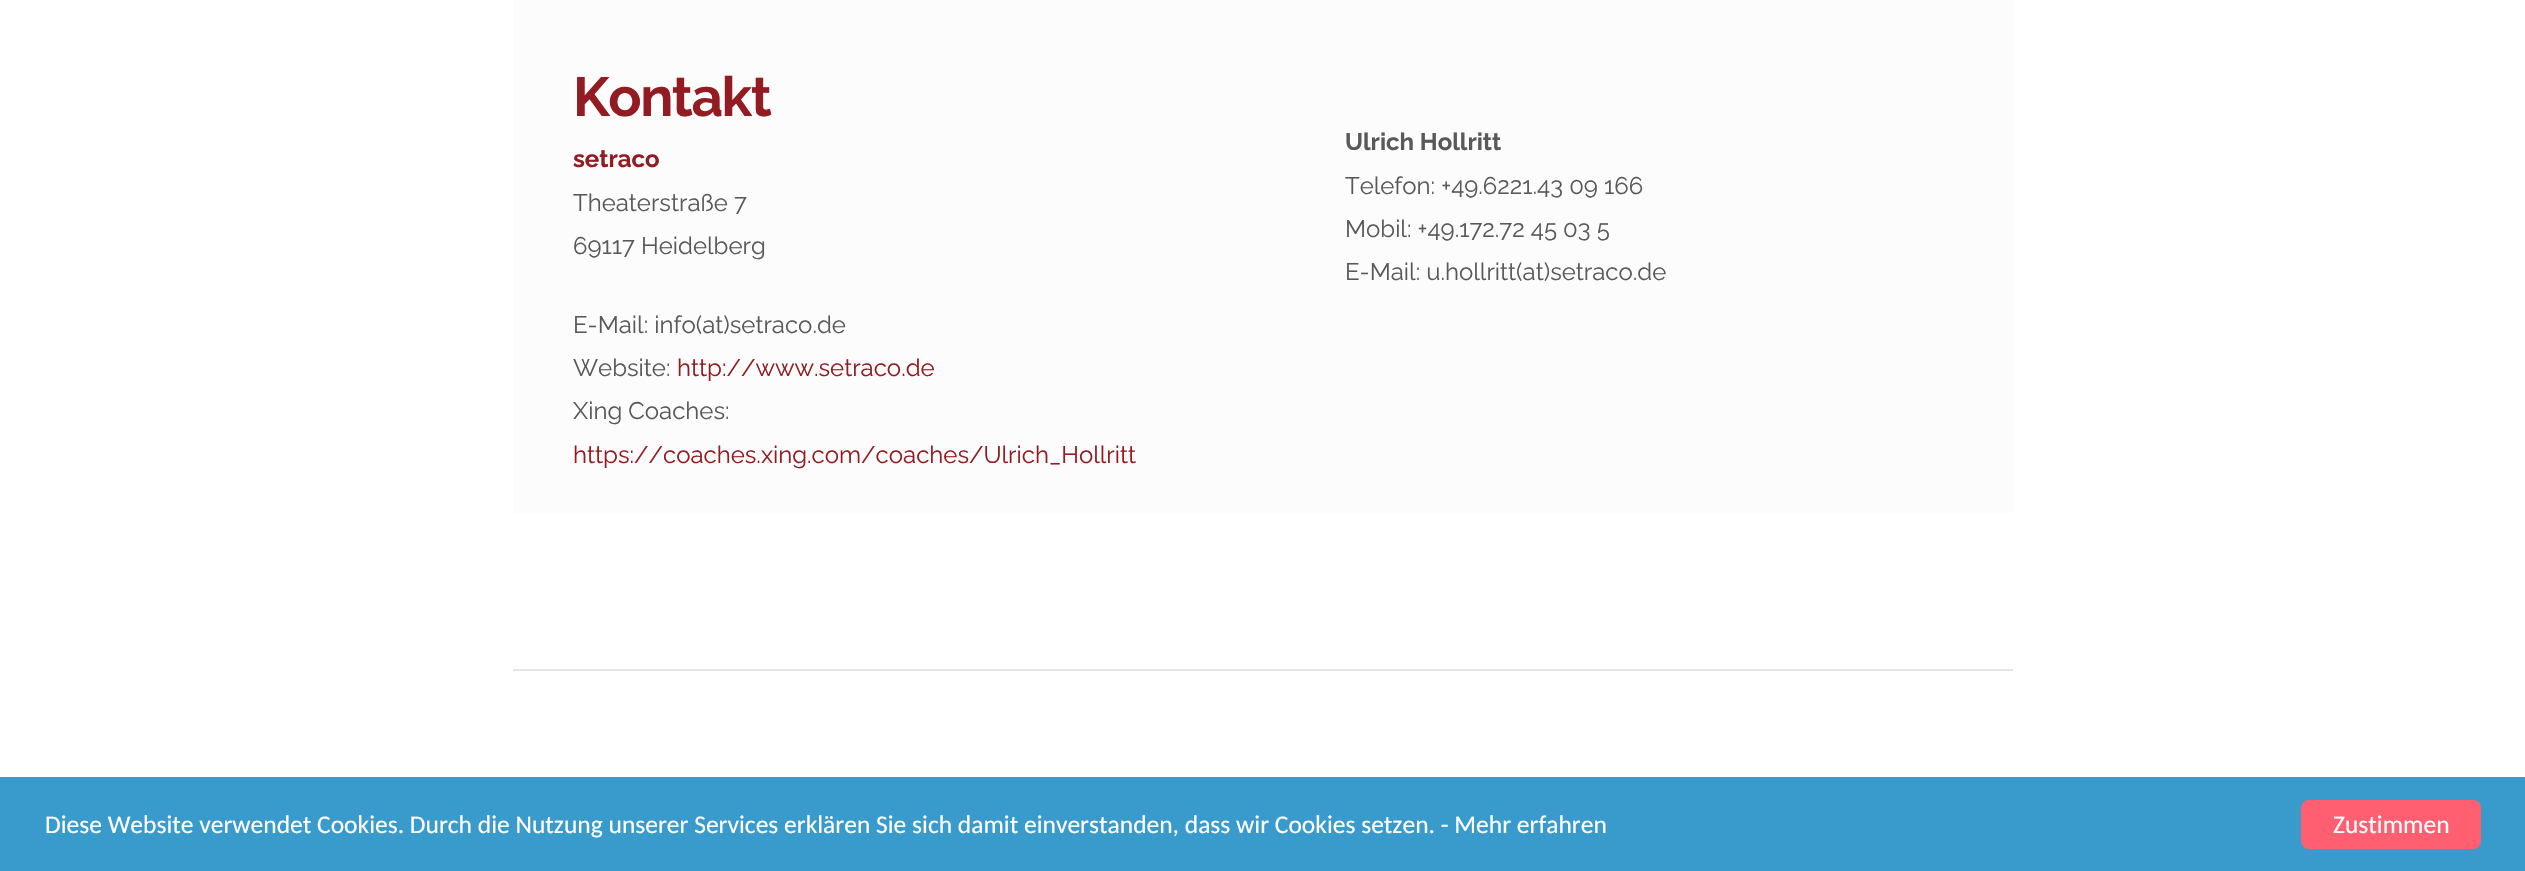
#include "include/core/SkBlurTypes.h"
#include "include/core/SkCanvas.h"
#include "include/core/SkData.h"
#include "include/core/SkFont.h"
#include "include/core/SkFontMgr.h"
#include "include/core/SkImage.h"
#include "include/core/SkMaskFilter.h"
#include "include/core/SkPaint.h"
#include "include/core/SkPathBuilder.h"
#include "include/core/SkTextBlob.h"
#include "include/effects/SkDashPathEffect.h"
#include "include/effects/SkGradientShader.h"
#include "include/utils/SkParsePath.h"

extern sk_sp<SkFontMgr> fontMgr;

void draw(SkCanvas* canvas) {
  SkPaint p;
  p.setAntiAlias(true);
  auto spacedText = [&](const char* s, float x, float y, const SkFont& font, const SkPaint& ink, float letter, float word) {
    std::vector<SkGlyphID> glyphs(font.countText(s, strlen(s), SkTextEncoding::kUTF8));
    std::vector<float> xs(glyphs.size());
    font.textToGlyphs(s, strlen(s), SkTextEncoding::kUTF8, glyphs);
    font.getXPos(glyphs, xs, x);
    float extra = 0;
    for (size_t i = 0; i < glyphs.size(); i++) {
      xs[i] += extra;
      extra += letter + word * (glyphs[i] == font.unicharToGlyph(' '));
    }
    canvas->drawTextBlob(SkTextBlob::MakeFromPosHGlyphs(glyphs, xs, y, font), 0, 0, ink);
  };
  canvas->clear(SK_ColorWHITE);
  p.setColor(SkColorSetRGB(253, 252, 252));
  canvas->drawRect(SkRect::MakeLTRB(513, 0, 2013, 513), p);
  p.setColor(SkColorSetRGB(229, 229, 229));
  canvas->drawRect(SkRect::MakeLTRB(513, 669, 2013, 671), p);
  p.setColor(SkColorSetRGB(56, 155, 204));
  canvas->drawRect(SkRect::MakeLTRB(0, 777, 2525, 871), p);
  p.setColor(SkColorSetRGB(255, 95, 113));
  canvas->drawRoundRect(SkRect::MakeLTRB(2301, 800, 2481, 849), 8, 8, p);
  SkFont font1(fontMgr->matchFamilyStyle("Raleway", SkFontStyle::Bold()), 55);
  font1.setSubpixel(true);
  p.setColor(SkColorSetRGB(146, 28, 34));
  spacedText("Kontakt", 573, 116, font1, p, -1.5f, 0);
  SkFont font2(fontMgr->matchFamilyStyle("Raleway", SkFontStyle::Bold()), 24);
  font2.setSubpixel(true);
  canvas->drawString("setraco", 573, 167, font2, p);
  SkFont font3(fontMgr->matchFamilyStyle("Raleway", SkFontStyle::Normal()), 24);
  font3.setSubpixel(true);
  p.setColor(SkColorSetRGB(89, 89, 89));
  canvas->drawString("Theaterstraße 7", 573, 211, font3, p);
  canvas->drawString("69117 Heidelberg", 573, 254, font3, p);
  canvas->drawString("E-Mail: info(at)setraco.de", 573, 333, font3, p);
  canvas->drawString("Website:", 573, 376, font3, p);
  p.setColor(SkColorSetRGB(146, 28, 34));
  canvas->drawString("http://www.setraco.de", 677, 376, font3, p);
  p.setColor(SkColorSetRGB(89, 89, 89));
  canvas->drawString("Xing Coaches:", 573, 419, font3, p);
  p.setColor(SkColorSetRGB(146, 28, 34));
  canvas->drawString("https://coaches.xing.com/coaches/Ulrich_Hollritt", 573, 463, font3, p);
  p.setColor(SkColorSetRGB(89, 89, 89));
  canvas->drawString("Ulrich Hollritt", 1345, 150, font2, p);
  canvas->drawString("Telefon: +49.6221.43 09 166", 1345, 194, font3, p);
  canvas->drawString("Mobil: +49.172.72 45 03 5", 1345, 237, font3, p);
  canvas->drawString("E-Mail: u.hollritt(at)setraco.de", 1345, 280, font3, p);
  SkFont font4(fontMgr->matchFamilyStyle("Carlito", SkFontStyle::Normal()), 25.5f);
  font4.setSubpixel(true);
  p.setColor(SK_ColorWHITE);
  canvas->drawString("Diese Website verwendet Cookies. Durch die Nutzung unserer Services erklären Sie sich damit einverstanden, dass wir Cookies setzen. - Mehr erfahren", 45, 833, font4, p);
  canvas->drawString("Zustimmen", 2333, 833, font4, p);
}
